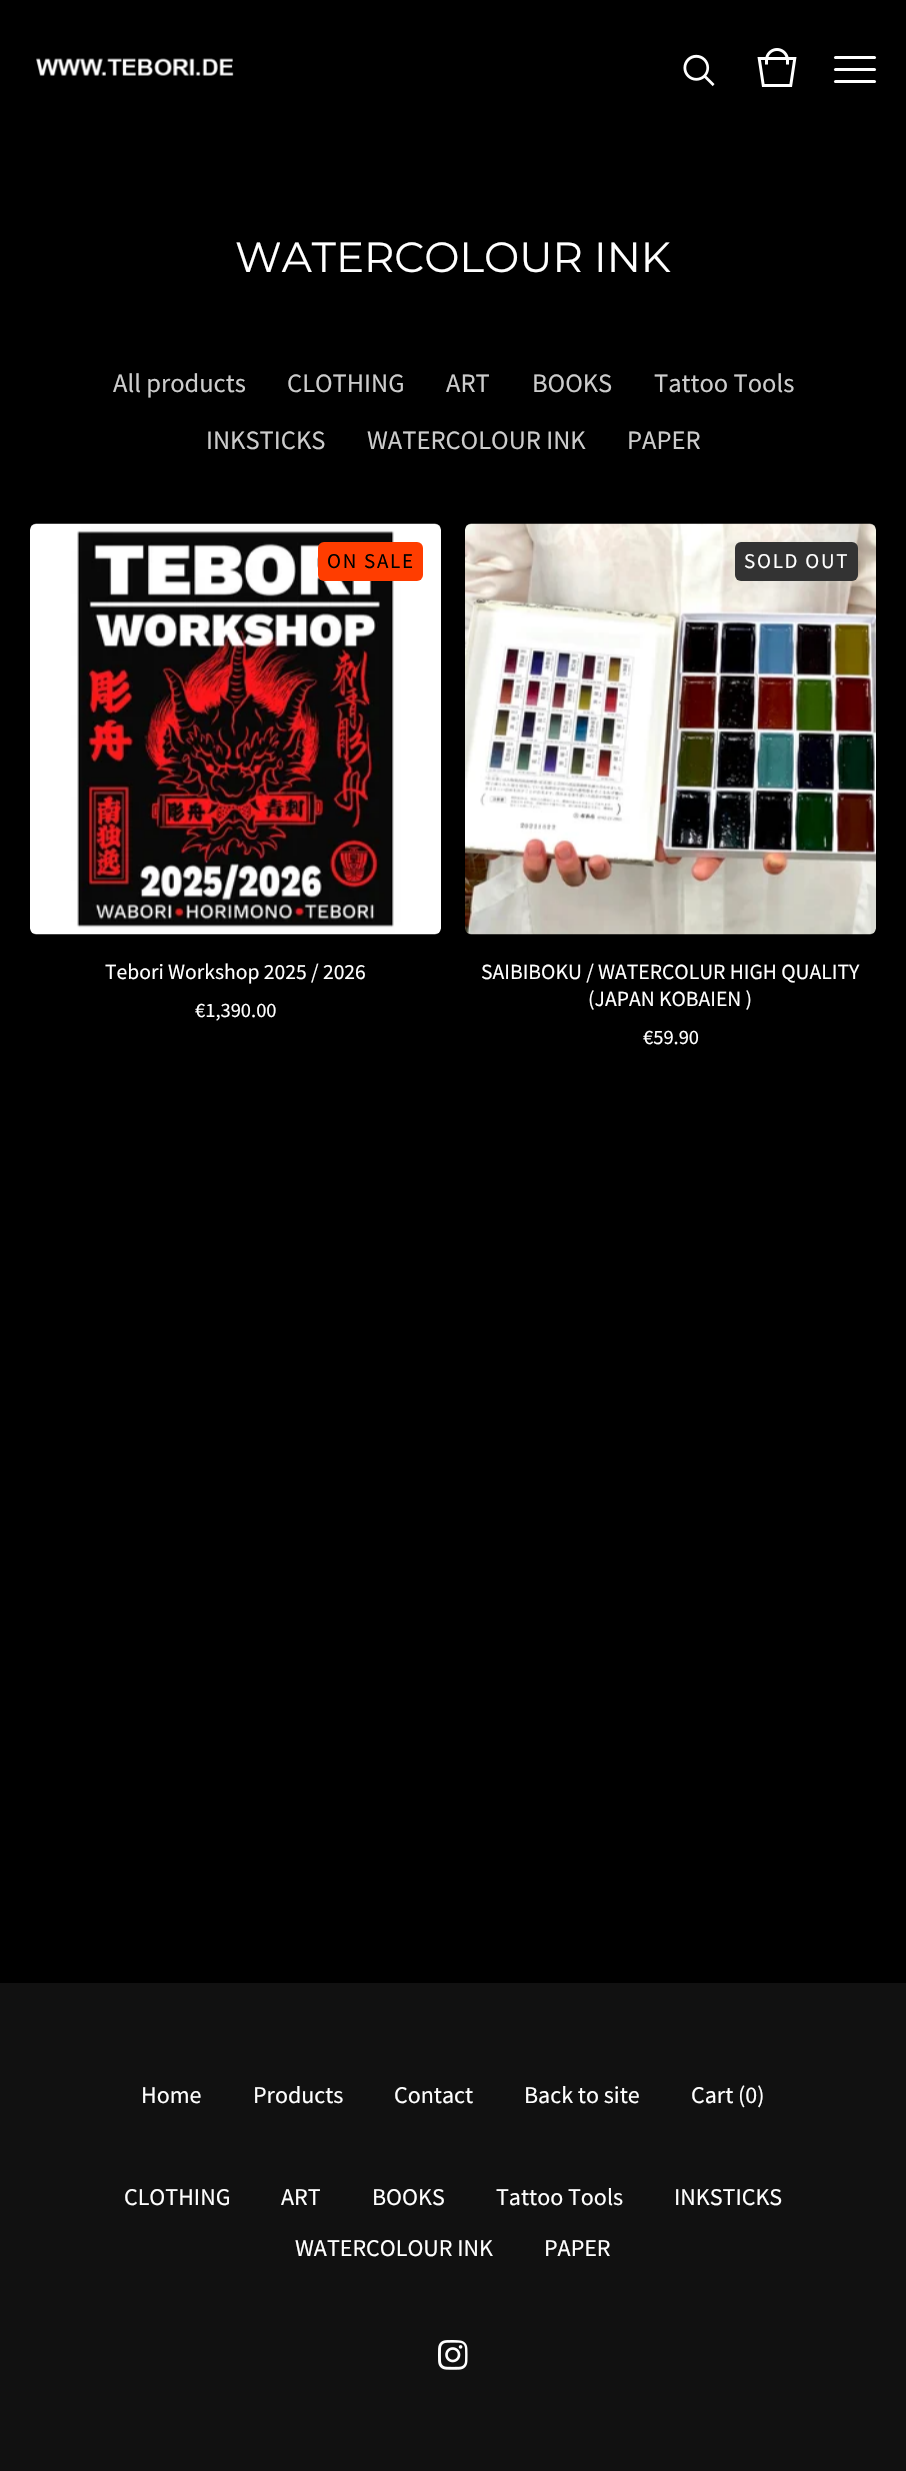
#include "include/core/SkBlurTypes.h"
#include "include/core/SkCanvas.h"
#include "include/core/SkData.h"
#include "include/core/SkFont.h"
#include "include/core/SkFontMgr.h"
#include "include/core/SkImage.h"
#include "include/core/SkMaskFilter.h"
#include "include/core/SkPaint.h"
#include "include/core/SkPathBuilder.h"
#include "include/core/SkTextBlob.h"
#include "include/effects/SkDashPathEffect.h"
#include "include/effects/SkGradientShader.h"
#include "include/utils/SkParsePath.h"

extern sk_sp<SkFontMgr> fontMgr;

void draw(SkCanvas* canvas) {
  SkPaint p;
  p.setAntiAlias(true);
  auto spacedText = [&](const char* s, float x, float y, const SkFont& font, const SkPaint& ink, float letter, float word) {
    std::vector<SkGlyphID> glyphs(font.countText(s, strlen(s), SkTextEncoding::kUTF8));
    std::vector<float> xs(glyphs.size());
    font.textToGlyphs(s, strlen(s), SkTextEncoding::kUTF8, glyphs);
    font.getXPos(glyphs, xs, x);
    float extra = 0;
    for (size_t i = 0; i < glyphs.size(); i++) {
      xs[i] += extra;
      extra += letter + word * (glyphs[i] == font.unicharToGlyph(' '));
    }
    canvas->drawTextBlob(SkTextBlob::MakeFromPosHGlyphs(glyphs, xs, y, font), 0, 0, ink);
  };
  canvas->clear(SK_ColorBLACK);
  canvas->drawImageRect(SkImages::DeferredFromEncodedData(SkData::MakeFromFileName("images/1.png")), SkRect::MakeLTRB(36, 58, 234, 76), SkSamplingOptions());
  canvas->drawImageRect(SkImages::DeferredFromEncodedData(SkData::MakeFromFileName("images/2.png")), SkRect::MakeLTRB(683, 54, 715, 87), SkSamplingOptions());
  canvas->drawImageRect(SkImages::DeferredFromEncodedData(SkData::MakeFromFileName("images/3.png")), SkRect::MakeLTRB(757, 48, 797, 87), SkSamplingOptions());
  p.setColor(SK_ColorWHITE);
  canvas->drawRoundRect(SkRect::MakeLTRB(834, 56, 876, 59), 1.5f, 1.5f, p);
  canvas->drawRoundRect(SkRect::MakeLTRB(834, 68, 876, 71), 1.5f, 1.5f, p);
  canvas->drawRoundRect(SkRect::MakeLTRB(834, 80, 876, 83), 1.5f, 1.5f, p);
  canvas->drawImageRect(SkImages::DeferredFromEncodedData(SkData::MakeFromFileName("images/4.png")), SkRect::MakeLTRB(30, 523, 441, 935), SkSamplingOptions());
  p.setColor(SkColorSetRGB(255, 61, 0));
  canvas->drawRoundRect(SkRect::MakeLTRB(318, 542, 423, 581), 6, 6, p);
  canvas->drawImageRect(SkImages::DeferredFromEncodedData(SkData::MakeFromFileName("images/5.png")), SkRect::MakeLTRB(465, 523, 876, 935), SkSamplingOptions());
  p.setColor(SkColorSetRGB(51, 51, 51));
  canvas->drawRoundRect(SkRect::MakeLTRB(735, 542, 858, 581), 6, 6, p);
  p.setColor(SkColorSetRGB(17, 17, 17));
  canvas->drawRect(SkRect::MakeLTRB(0, 1983, 906, 2471), p);
  canvas->drawImageRect(SkImages::DeferredFromEncodedData(SkData::MakeFromFileName("images/6.png")), SkRect::MakeLTRB(438, 2340, 468, 2370), SkSamplingOptions());
  SkFont font1(fontMgr->matchFamilyStyle("Montserrat", SkFontStyle::Normal()), 42);
  font1.setSubpixel(true);
  p.setColor(SK_ColorWHITE);
  canvas->drawString("WATERCOLOUR INK", 235, 272, font1, p);
  SkFont font2(fontMgr->matchFamilyStyle("Source Sans Pro", SkFontStyle::Normal()), 26.5f);
  font2.setSubpixel(true);
  p.setColor(SkColorSetRGB(204, 204, 204));
  canvas->drawString("All products", 113, 392, font2, p);
  canvas->drawString("CLOTHING", 287, 392, font2, p);
  canvas->drawString("ART", 446, 392, font2, p);
  canvas->drawString("BOOKS", 532, 392, font2, p);
  canvas->drawString("Tattoo Tools", 654, 392, font2, p);
  canvas->drawString("INKSTICKS", 206, 449, font2, p);
  canvas->drawString("WATERCOLOUR INK", 367, 449, font2, p);
  canvas->drawString("PAPER", 627, 449, font2, p);
  SkFont font3(fontMgr->matchFamilyStyle("Source Sans Pro", SkFontStyle::Normal()), 21);
  font3.setSubpixel(true);
  p.setColor(SK_ColorBLACK);
  spacedText("ON SALE", 327, 568, font3, p, 1.75f, 0);
  SkFont font4(fontMgr->matchFamilyStyle("Source Sans Pro", SkFontStyle::Normal()), 21.6f);
  font4.setSubpixel(true);
  p.setColor(SK_ColorWHITE);
  canvas->drawString("Tebori Workshop 2025 / 2026", 105, 979, font4, p);
  SkFont font5(fontMgr->matchFamilyStyle("Source Sans Pro", SkFontStyle::Normal()), 20.5f);
  font5.setSubpixel(true);
  canvas->drawString("€1,390.00", 195, 1017, font5, p);
  spacedText("SOLD OUT", 744, 568, font3, p, 1.75f, 0);
  canvas->drawString("SAIBIBOKU / WATERCOLUR HIGH QUALITY", 481, 979, font4, p);
  canvas->drawString("(JAPAN KOBAIEN )", 588, 1006, font4, p);
  canvas->drawString("€59.90", 643, 1044, font5, p);
  SkFont font6(fontMgr->matchFamilyStyle("Source Sans Pro", SkFontStyle::Normal()), 24);
  font6.setSubpixel(true);
  canvas->drawString("Home", 141, 2103, font6, p);
  canvas->drawString("Products", 253, 2103, font6, p);
  canvas->drawString("Contact", 394, 2103, font6, p);
  canvas->drawString("Back to site", 524, 2103, font6, p);
  canvas->drawString("Cart (0)", 691, 2103, font6, p);
  canvas->drawString("CLOTHING", 124, 2205, font6, p);
  canvas->drawString("ART", 281, 2205, font6, p);
  canvas->drawString("BOOKS", 372, 2205, font6, p);
  canvas->drawString("Tattoo Tools", 496, 2205, font6, p);
  canvas->drawString("INKSTICKS", 674, 2205, font6, p);
  canvas->drawString("WATERCOLOUR INK", 295, 2256, font6, p);
  canvas->drawString("PAPER", 544, 2256, font6, p);
}
